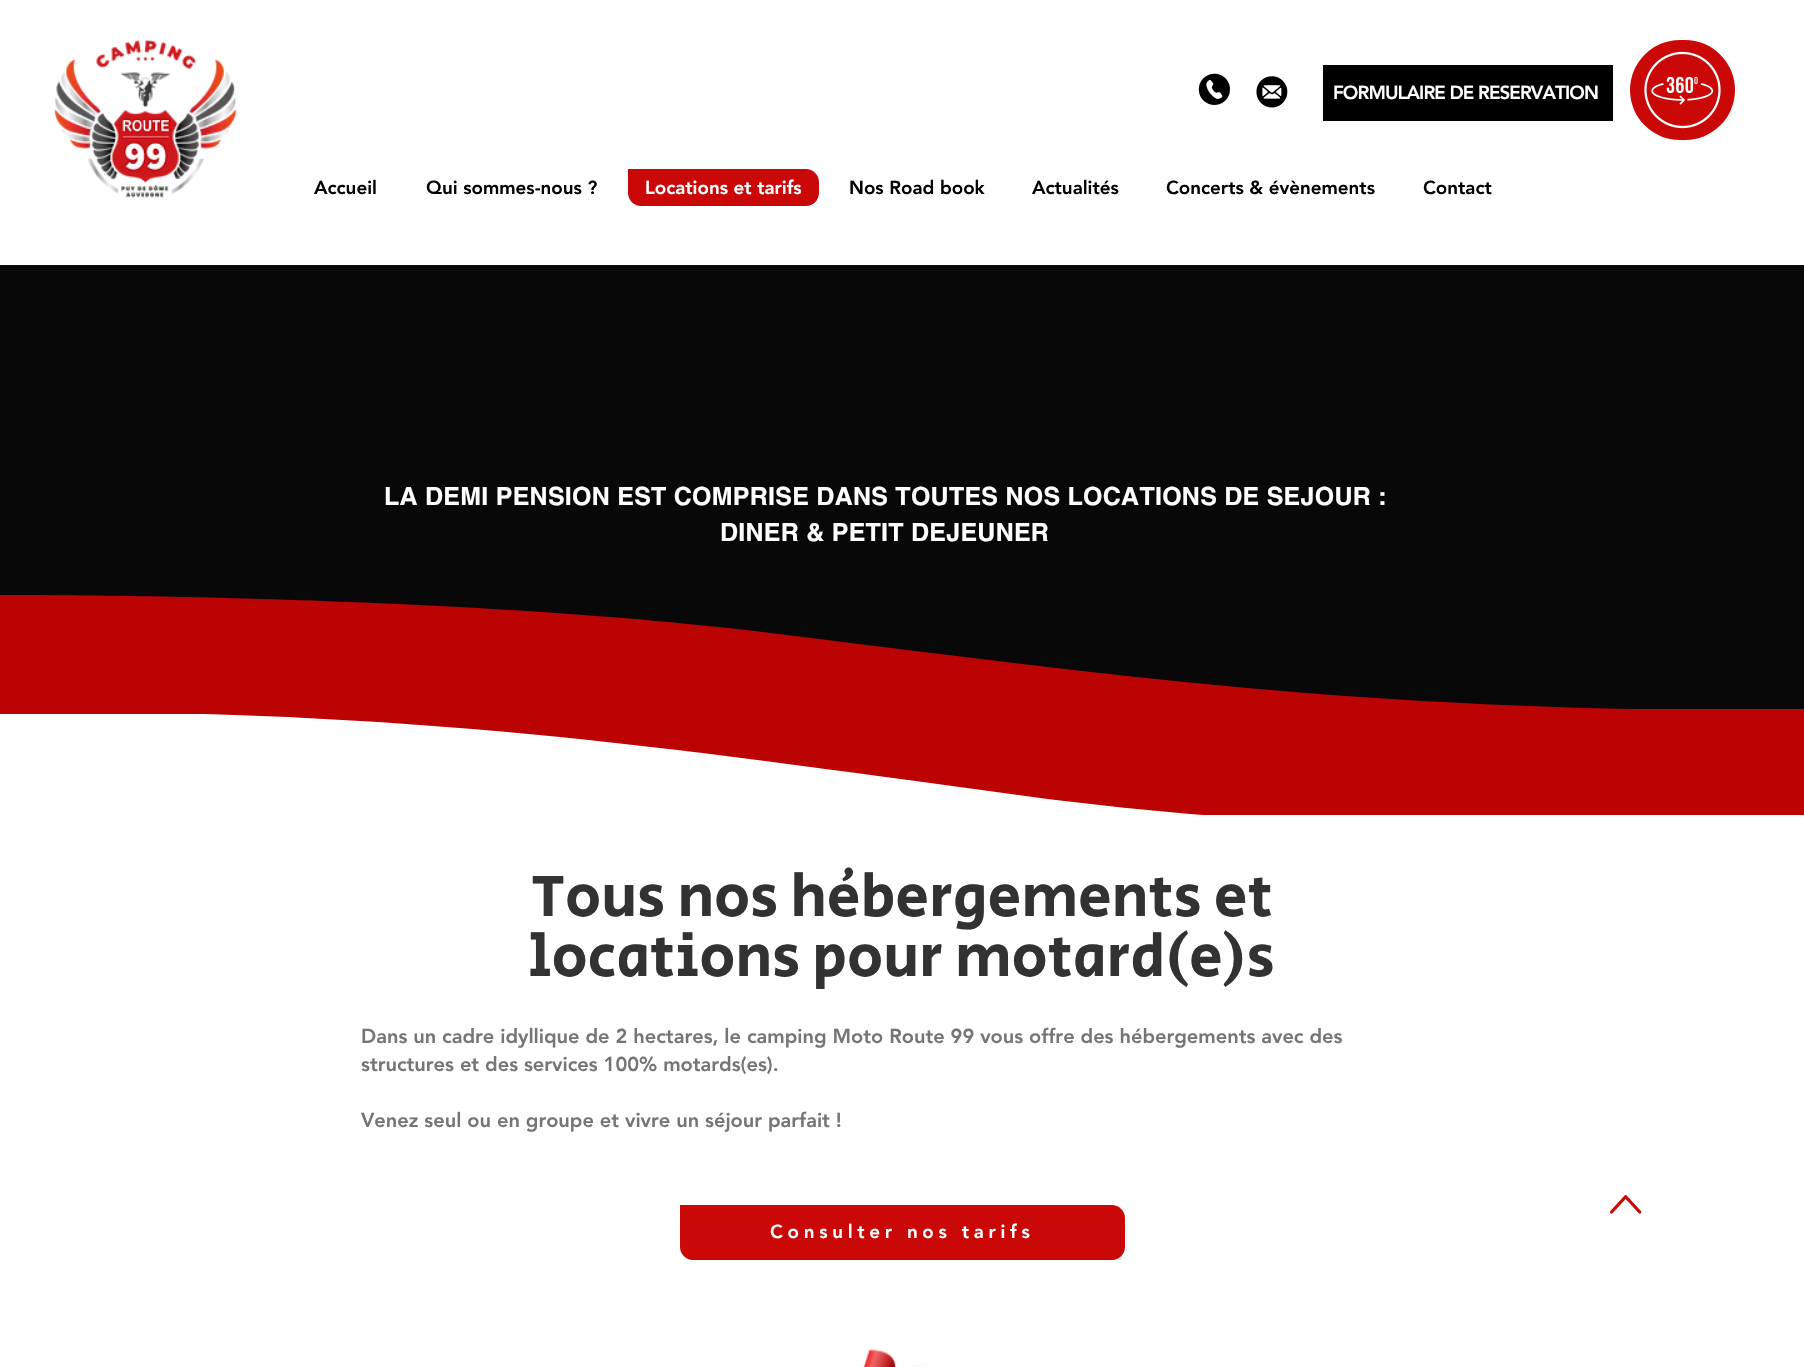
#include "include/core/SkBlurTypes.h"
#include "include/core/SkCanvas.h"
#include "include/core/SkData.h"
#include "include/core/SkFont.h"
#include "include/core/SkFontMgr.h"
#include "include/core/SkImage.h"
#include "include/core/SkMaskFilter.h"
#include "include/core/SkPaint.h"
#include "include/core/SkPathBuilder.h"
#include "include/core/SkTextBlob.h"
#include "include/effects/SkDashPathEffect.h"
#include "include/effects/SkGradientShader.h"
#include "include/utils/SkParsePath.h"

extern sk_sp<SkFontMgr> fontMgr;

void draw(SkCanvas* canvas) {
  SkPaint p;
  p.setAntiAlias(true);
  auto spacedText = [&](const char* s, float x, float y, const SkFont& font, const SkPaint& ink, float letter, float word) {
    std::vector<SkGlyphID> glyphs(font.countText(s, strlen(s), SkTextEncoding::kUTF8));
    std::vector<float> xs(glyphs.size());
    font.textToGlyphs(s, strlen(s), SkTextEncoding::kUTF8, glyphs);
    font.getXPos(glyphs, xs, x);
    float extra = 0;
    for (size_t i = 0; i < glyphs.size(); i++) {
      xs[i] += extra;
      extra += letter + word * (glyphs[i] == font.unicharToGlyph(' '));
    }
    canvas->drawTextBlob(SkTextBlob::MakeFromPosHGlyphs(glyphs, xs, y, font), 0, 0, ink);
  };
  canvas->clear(SK_ColorWHITE);
  canvas->drawImageRect(SkImages::DeferredFromEncodedData(SkData::MakeFromFileName("images/1.png")), SkRect::MakeLTRB(54, 39, 237, 198), SkSamplingOptions());
  canvas->drawImageRect(SkImages::DeferredFromEncodedData(SkData::MakeFromFileName("images/2.png")), SkRect::MakeLTRB(1198, 73, 1230, 105), SkSamplingOptions());
  canvas->drawImageRect(SkImages::DeferredFromEncodedData(SkData::MakeFromFileName("images/3.png")), SkRect::MakeLTRB(1256, 76, 1288, 108), SkSamplingOptions());
  p.setColor(SK_ColorBLACK);
  canvas->drawRect(SkRect::MakeLTRB(1323, 65, 1613, 121), p);
  p.setColor(SkColorSetRGB(203, 8, 8));
  canvas->drawRoundRect(SkRect::MakeLTRB(1630, 40, 1735, 140), 50, 50, p);
  canvas->drawImageRect(SkImages::DeferredFromEncodedData(SkData::MakeFromFileName("images/4.png")), SkRect::MakeLTRB(1644, 51, 1721, 129), SkSamplingOptions());
  canvas->drawPath(SkPathBuilder().moveTo(628, 169).lineTo(806, 169).cubicTo(813, 169, 819, 175, 819, 182).lineTo(819, 193).cubicTo(819, 200, 813, 206, 806, 206).lineTo(641, 206).cubicTo(634, 206, 628, 200, 628, 193).close().detach(), p);
  p.setColor(SkColorSetRGB(9, 8, 8));
  canvas->drawRect(SkRect::MakeLTRB(0, 265, 1804, 709), p);
  p.setColor(SkColorSetRGB(187, 3, 3));
  canvas->drawPath(SkPathBuilder().moveTo(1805, 714).lineTo(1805, 711).cubicTo(1377, 711, 1156, 681, 787, 635).cubicTo(461, 593, 0, 595, 0, 595).lineTo(0, 714).close().detach(), p);
  canvas->drawPath(SkPathBuilder().moveTo(0, 709).lineTo(0, 711).cubicTo(428, 711, 649, 745, 1018, 795).cubicTo(1344, 840, 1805, 839, 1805, 839).lineTo(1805, 709).close().detach(), p);
  p.setColor(SK_ColorWHITE);
  canvas->drawRect(SkRect::MakeLTRB(1203, 815, 1804, 839), p);
  p.setColor(SkColorSetRGB(203, 8, 8));
  canvas->drawPath(SkPathBuilder().moveTo(680, 1205).lineTo(1112, 1205).cubicTo(1119, 1205, 1125, 1211, 1125, 1218).lineTo(1125, 1247).cubicTo(1125, 1254, 1119, 1260, 1112, 1260).lineTo(693, 1260).cubicTo(686, 1260, 680, 1254, 680, 1247).close().detach(), p);
  canvas->drawImageRect(SkImages::DeferredFromEncodedData(SkData::MakeFromFileName("images/5.png")), SkRect::MakeLTRB(863, 1348, 928, 1367), SkSamplingOptions());
  canvas->drawImageRect(SkImages::DeferredFromEncodedData(SkData::MakeFromFileName("images/6.png")), SkRect::MakeLTRB(1610, 1195, 1642, 1214), SkSamplingOptions());
  SkFont font1(fontMgr->matchFamilyStyle("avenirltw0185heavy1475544", SkFontStyle(900, SkFontStyle::kNormal_Width, SkFontStyle::kUpright_Slant)), 18.75f);
  font1.setSubpixel(true);
  p.setColor(SK_ColorWHITE);
  spacedText("FORMULAIRE DE RESERVATION", 1333, 99, font1, p, -0.9f, 0);
  p.setColor(SK_ColorBLACK);
  canvas->drawString("Accueil", 314, 194, font1, p);
  canvas->drawString("Qui sommes-nous ?", 426, 194, font1, p);
  p.setColor(SK_ColorWHITE);
  canvas->drawString("Locations et tarifs", 645, 194, font1, p);
  p.setColor(SK_ColorBLACK);
  canvas->drawString("Nos Road book", 849, 194, font1, p);
  canvas->drawString("Actualités", 1032, 194, font1, p);
  canvas->drawString("Concerts & évènements", 1166, 194, font1, p);
  canvas->drawString("Contact", 1423, 194, font1, p);
  SkFont font2(fontMgr->matchFamilyStyle("helvetica", SkFontStyle::Bold()), 25);
  font2.setSubpixel(true);
  p.setColor(SK_ColorWHITE);
  spacedText("LA DEMI PENSION EST COMPRISE DANS TOUTES NOS LOCATIONS DE SEJOUR :", 384, 505, font2, p, 0.25f, 0);
  spacedText("DINER & PETIT DEJEUNER", 720, 541, font2, p, 0.25f, 0);
  SkFont font3(fontMgr->matchFamilyStyle("Secular One", SkFontStyle::Normal()), 60);
  font3.setSubpixel(true);
  p.setColor(SkColorSetRGB(50, 50, 50));
  canvas->drawString("Tous nos hébergements et", 531, 916, font3, p);
  canvas->drawString("locations pour motard(e)s", 528, 976, font3, p);
  SkFont font4(fontMgr->matchFamilyStyle("avenirltw0185heavy1475544", SkFontStyle(900, SkFontStyle::kNormal_Width, SkFontStyle::kUpright_Slant)), 20);
  font4.setSubpixel(true);
  p.setColor(SkColorSetRGB(117, 117, 117));
  canvas->drawString("Dans un cadre idyllique de 2 hectares, le camping Moto Route 99 vous offre des hébergements avec des", 361, 1043, font4, p);
  canvas->drawString("structures et des services 100% motards(es).", 361, 1071, font4, p);
  canvas->drawString("Venez seul ou en groupe et vivre un séjour parfait !", 361, 1127, font4, p);
  p.setColor(SK_ColorWHITE);
  spacedText("Consulter nos tarifs", 770, 1238, font1, p, 4.7f, 0);
}
